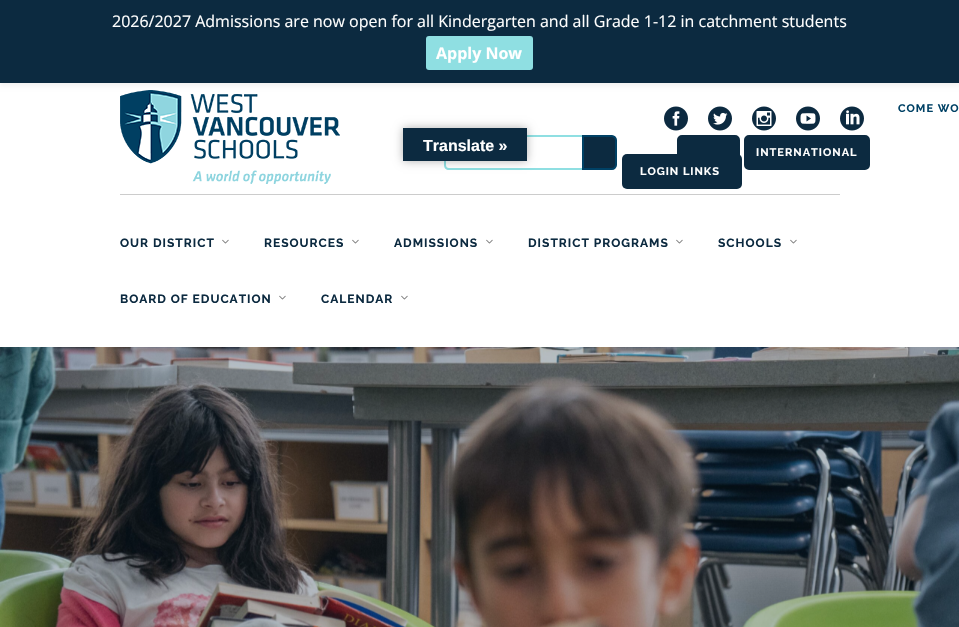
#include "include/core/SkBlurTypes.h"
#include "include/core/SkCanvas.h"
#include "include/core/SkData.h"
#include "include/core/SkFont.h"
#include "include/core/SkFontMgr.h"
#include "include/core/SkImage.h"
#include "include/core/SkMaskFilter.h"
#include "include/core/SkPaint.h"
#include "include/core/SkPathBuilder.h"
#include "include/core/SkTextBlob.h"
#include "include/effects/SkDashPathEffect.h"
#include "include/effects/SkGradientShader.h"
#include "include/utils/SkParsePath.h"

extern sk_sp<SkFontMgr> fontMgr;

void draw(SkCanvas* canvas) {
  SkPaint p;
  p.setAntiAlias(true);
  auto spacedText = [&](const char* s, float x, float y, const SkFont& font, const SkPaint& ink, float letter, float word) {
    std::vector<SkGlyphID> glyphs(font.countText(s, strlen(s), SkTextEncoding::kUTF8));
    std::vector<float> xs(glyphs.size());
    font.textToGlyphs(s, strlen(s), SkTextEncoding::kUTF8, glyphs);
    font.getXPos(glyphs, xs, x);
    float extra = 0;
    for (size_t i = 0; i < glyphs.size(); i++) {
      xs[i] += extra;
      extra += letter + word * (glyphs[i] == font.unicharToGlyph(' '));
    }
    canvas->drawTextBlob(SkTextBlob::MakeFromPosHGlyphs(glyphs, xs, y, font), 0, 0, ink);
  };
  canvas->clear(SK_ColorWHITE);
  canvas->drawImageRect(SkImages::DeferredFromEncodedData(SkData::MakeFromFileName("images/6.png")), SkRect::MakeLTRB(120, 90, 340, 184), SkSamplingOptions());
  p.setColor(SkColorSetARGB(13, 0, 0, 0));
  p.setMaskFilter(SkMaskFilter::MakeBlur(kNormal_SkBlurStyle, 2));
  canvas->drawRect(SkRect::MakeLTRB(0, 3, 959, 86), p);
  p.setMaskFilter(nullptr);
  p.setColor(SkColorSetRGB(12, 42, 64));
  canvas->drawRect(SkRect::MakeLTRB(0, 0, 959, 83), p);
  p.setColor(SkColorSetRGB(143, 223, 226));
  canvas->drawRoundRect(SkRect::MakeLTRB(426, 36, 533, 70), 3, 3, p);
  p.setColor(SkColorSetRGB(204, 204, 204));
  canvas->drawRect(SkRect::MakeLTRB(120, 194, 840, 195), p);
  canvas->drawImageRect(SkImages::DeferredFromEncodedData(SkData::MakeFromFileName("images/1.png")), SkRect::MakeLTRB(664, 106, 688, 131), SkSamplingOptions());
  canvas->drawImageRect(SkImages::DeferredFromEncodedData(SkData::MakeFromFileName("images/2.png")), SkRect::MakeLTRB(708, 106, 732, 131), SkSamplingOptions());
  canvas->drawImageRect(SkImages::DeferredFromEncodedData(SkData::MakeFromFileName("images/3.png")), SkRect::MakeLTRB(752, 106, 776, 131), SkSamplingOptions());
  canvas->drawImageRect(SkImages::DeferredFromEncodedData(SkData::MakeFromFileName("images/4.png")), SkRect::MakeLTRB(796, 106, 820, 131), SkSamplingOptions());
  canvas->drawImageRect(SkImages::DeferredFromEncodedData(SkData::MakeFromFileName("images/5.png")), SkRect::MakeLTRB(840, 106, 864, 131), SkSamplingOptions());
  p.setColor(SkColorSetRGB(143, 223, 226));
  canvas->drawPath(SkPathBuilder(SkPathFillType::kEvenOdd).moveTo(449, 135).lineTo(582, 135).lineTo(582, 170).lineTo(449, 170).cubicTo(446, 170, 444, 168, 444, 165).lineTo(444, 140).cubicTo(444, 137, 446, 135, 449, 135).close().moveTo(449, 137).lineTo(582, 137).lineTo(582, 168).lineTo(449, 168).cubicTo(447, 168, 446, 167, 446, 165).lineTo(446, 140).cubicTo(446, 138, 447, 137, 449, 137).close().detach(), p);
  p.setColor(SkColorSetRGB(12, 42, 64));
  canvas->drawPath(SkPathBuilder().moveTo(583, 136).lineTo(612, 136).cubicTo(614, 136, 616, 138, 616, 140).lineTo(616, 165).cubicTo(616, 167, 614, 169, 612, 169).lineTo(583, 169).close().detach(), p);
  p.setStyle(SkPaint::kStroke_Style);
  p.setStrokeWidth(2);
  p.setColor(SkColorSetRGB(0, 65, 101));
  canvas->drawPath(SkPathBuilder().moveTo(583, 136).lineTo(612, 136).cubicTo(614, 136, 616, 138, 616, 140).lineTo(616, 165).cubicTo(616, 167, 614, 169, 612, 169).lineTo(583, 169).close().detach(), p);
  p.setStyle(SkPaint::kFill_Style);
  p.setColor(SkColorSetRGB(12, 42, 64));
  canvas->drawRoundRect(SkRect::MakeLTRB(745, 136, 869, 169), 4, 4, p);
  p.setStyle(SkPaint::kStroke_Style);
  canvas->drawRoundRect(SkRect::MakeLTRB(745, 136, 869, 169), 4, 4, p);
  p.setStyle(SkPaint::kFill_Style);
  canvas->drawRoundRect(SkRect::MakeLTRB(678, 136, 739, 166), 4, 4, p);
  p.setStyle(SkPaint::kStroke_Style);
  canvas->drawRoundRect(SkRect::MakeLTRB(678, 136, 739, 166), 4, 4, p);
  p.setStyle(SkPaint::kFill_Style);
  canvas->drawRoundRect(SkRect::MakeLTRB(622, 154, 742, 189), 5, 5, p);
  canvas->drawImageRect(SkImages::DeferredFromEncodedData(SkData::MakeFromFileName("images/7.png")), SkRect::MakeLTRB(222, 239, 229, 244), SkSamplingOptions());
  canvas->drawImageRect(SkImages::DeferredFromEncodedData(SkData::MakeFromFileName("images/7.png")), SkRect::MakeLTRB(352, 239, 359, 244), SkSamplingOptions());
  canvas->drawImageRect(SkImages::DeferredFromEncodedData(SkData::MakeFromFileName("images/7.png")), SkRect::MakeLTRB(486, 239, 493, 244), SkSamplingOptions());
  canvas->drawImageRect(SkImages::DeferredFromEncodedData(SkData::MakeFromFileName("images/7.png")), SkRect::MakeLTRB(676, 239, 683, 244), SkSamplingOptions());
  canvas->drawImageRect(SkImages::DeferredFromEncodedData(SkData::MakeFromFileName("images/7.png")), SkRect::MakeLTRB(790, 239, 797, 244), SkSamplingOptions());
  canvas->drawImageRect(SkImages::DeferredFromEncodedData(SkData::MakeFromFileName("images/7.png")), SkRect::MakeLTRB(279, 295, 286, 300), SkSamplingOptions());
  canvas->drawImageRect(SkImages::DeferredFromEncodedData(SkData::MakeFromFileName("images/7.png")), SkRect::MakeLTRB(401, 295, 408, 300), SkSamplingOptions());
  p.setColor(SkColorSetARGB(77, 0, 0, 0));
  p.setMaskFilter(SkMaskFilter::MakeBlur(kNormal_SkBlurStyle, 4.5f));
  canvas->drawRect(SkRect::MakeLTRB(403, 128, 527, 161), p);
  p.setMaskFilter(nullptr);
  p.setColor(SkColorSetRGB(12, 42, 64));
  canvas->drawRect(SkRect::MakeLTRB(403, 128, 527, 161), p);
  canvas->drawImageRect(SkImages::DeferredFromEncodedData(SkData::MakeFromFileName("images/8.png")), SkRect::MakeLTRB(0, 347, 959, 627), SkSamplingOptions());
  SkFont font1(fontMgr->matchFamilyStyle("Open Sans", SkFontStyle::Normal()), 16);
  font1.setSubpixel(true);
  p.setColor(SK_ColorWHITE);
  canvas->drawString("2026/2027 Admissions are now open for all Kindergarten and all Grade 1-12 in catchment students", 112, 27, font1, p);
  SkFont font2(fontMgr->matchFamilyStyle("Open Sans", SkFontStyle::Bold()), 16);
  font2.setSubpixel(true);
  canvas->drawString("Apply Now", 436, 59, font2, p);
  SkFont font3(fontMgr->matchFamilyStyle("Raleway", SkFontStyle(100, SkFontStyle::kNormal_Width, SkFontStyle::kUpright_Slant)), 11);
  font3.setSubpixel(true);
  p.setColor(SkColorSetRGB(0, 65, 101));
  spacedText("COME WO", 898, 112, font3, p, 1, 0);
  p.setColor(SK_ColorWHITE);
  spacedText("INTERNATIONAL", 756, 156, font3, p, 1, 0);
  spacedText("LOGIN LINKS", 640, 175, font3, p, 1, 0);
  SkFont font4(fontMgr->matchFamilyStyle("Raleway", SkFontStyle(100, SkFontStyle::kNormal_Width, SkFontStyle::kUpright_Slant)), 12);
  font4.setSubpixel(true);
  p.setColor(SkColorSetRGB(12, 42, 64));
  spacedText("OUR DISTRICT", 120, 247, font4, p, 1, 0);
  spacedText("RESOURCES", 264, 247, font4, p, 1, 0);
  spacedText("ADMISSIONS", 394, 247, font4, p, 1, 0);
  spacedText("DISTRICT PROGRAMS", 528, 247, font4, p, 1, 0);
  spacedText("SCHOOLS", 718, 247, font4, p, 1, 0);
  spacedText("BOARD OF EDUCATION", 120, 303, font4, p, 1, 0);
  spacedText("CALENDAR", 321, 303, font4, p, 1, 0);
  SkFont font5(fontMgr->matchFamilyStyle("Liberation Sans", SkFontStyle::Bold()), 16);
  font5.setSubpixel(true);
  p.setColor(SK_ColorWHITE);
  canvas->drawString("Translate »", 423, 151, font5, p);
}
